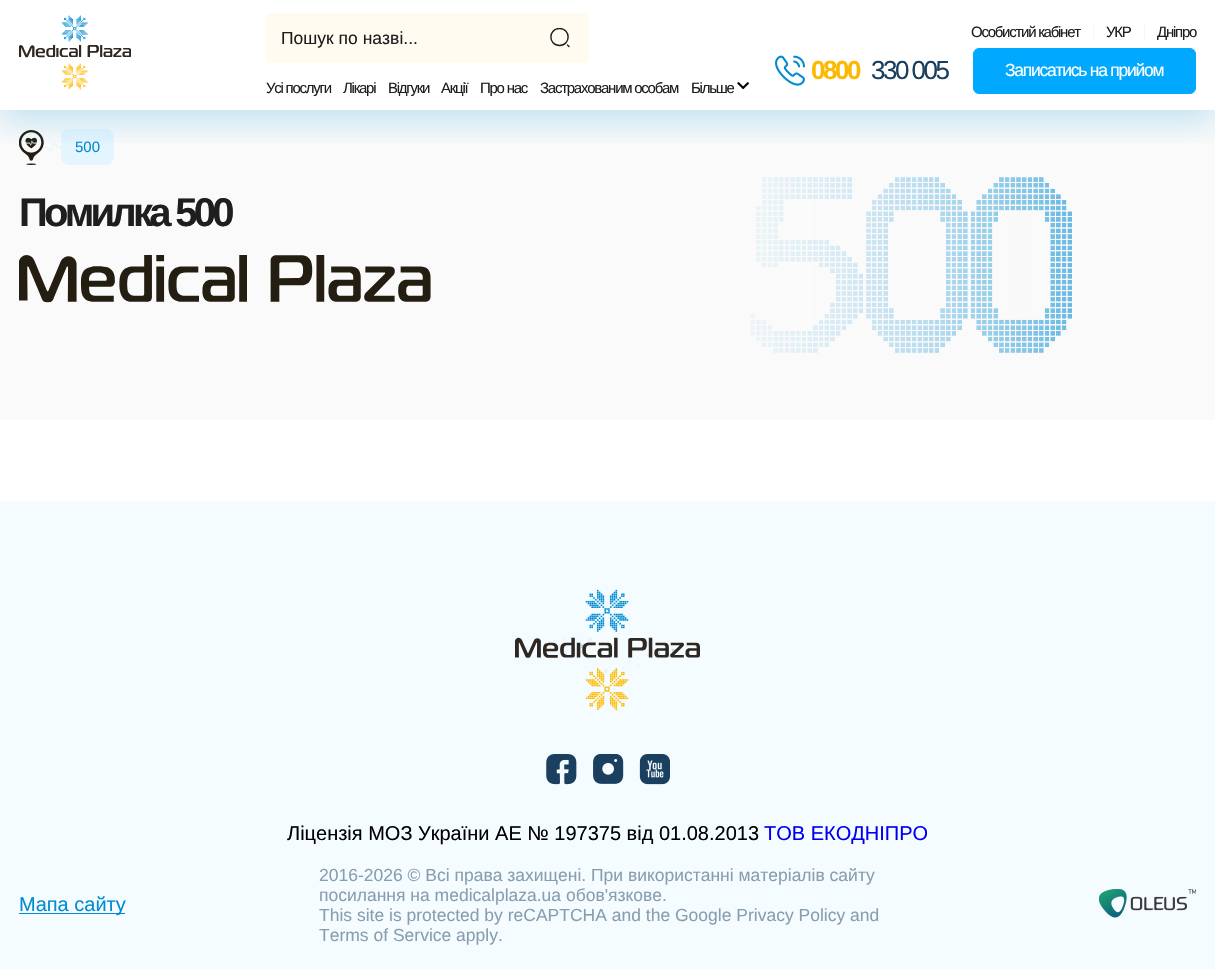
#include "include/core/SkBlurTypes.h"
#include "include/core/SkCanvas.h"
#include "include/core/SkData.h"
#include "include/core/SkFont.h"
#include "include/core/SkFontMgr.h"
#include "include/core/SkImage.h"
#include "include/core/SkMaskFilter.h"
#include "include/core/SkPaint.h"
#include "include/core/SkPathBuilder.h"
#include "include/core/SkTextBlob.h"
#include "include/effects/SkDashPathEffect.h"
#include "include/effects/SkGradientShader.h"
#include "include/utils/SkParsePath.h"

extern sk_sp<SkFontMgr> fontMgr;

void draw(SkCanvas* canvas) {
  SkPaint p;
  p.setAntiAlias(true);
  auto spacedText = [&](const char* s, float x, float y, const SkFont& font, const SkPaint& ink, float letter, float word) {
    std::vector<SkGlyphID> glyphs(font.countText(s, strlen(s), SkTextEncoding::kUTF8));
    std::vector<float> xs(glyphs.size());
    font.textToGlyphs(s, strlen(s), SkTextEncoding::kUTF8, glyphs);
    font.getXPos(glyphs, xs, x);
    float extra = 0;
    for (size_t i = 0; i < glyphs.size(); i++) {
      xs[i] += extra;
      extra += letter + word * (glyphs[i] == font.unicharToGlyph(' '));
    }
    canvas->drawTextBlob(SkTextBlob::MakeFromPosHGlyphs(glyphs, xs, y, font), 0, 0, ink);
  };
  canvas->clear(SK_ColorWHITE);
  p.setColor(SkColorSetRGB(250, 250, 250));
  canvas->drawRect(SkRect::MakeLTRB(0, 110, 1215, 420), p);
  canvas->drawImageRect(SkImages::DeferredFromEncodedData(SkData::MakeFromFileName("images/4.png")), SkRect::MakeLTRB(19, 130, 44, 165), SkSamplingOptions());
  canvas->drawImageRect(SkImages::DeferredFromEncodedData(SkData::MakeFromFileName("images/5.png")), SkRect::MakeLTRB(44, 143, 61, 151), SkSamplingOptions());
  p.setColor(SkColorSetRGB(229, 245, 254));
  canvas->drawRoundRect(SkRect::MakeLTRB(61.5f, 129.5f, 113.5f, 164.5f), 7.5f, 7.5f, p);
  p.setStyle(SkPaint::kStroke_Style);
  p.setStrokeWidth(1);
  canvas->drawRoundRect(SkRect::MakeLTRB(61.5f, 129.5f, 113.5f, 164.5f), 7.5f, 7.5f, p);
  canvas->save();
  canvas->clipRect(SkRect::MakeLTRB(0, 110, 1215, 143));
  p.setStyle(SkPaint::kFill_Style);
  p.setColor(SkColorSetARGB(64, 1, 139, 209));
  p.setMaskFilter(SkMaskFilter::MakeBlur(kNormal_SkBlurStyle, 16.5f));
  canvas->drawRect(SkRect::MakeLTRB(0, 10, 1215, 120), p);
  p.setMaskFilter(nullptr);
  canvas->restore();
  canvas->drawImageRect(SkImages::DeferredFromEncodedData(SkData::MakeFromFileName("images/1.png")), SkRect::MakeLTRB(19, 15, 131, 90), SkSamplingOptions());
  p.setColor(SkColorSetRGB(255, 251, 241));
  canvas->drawRoundRect(SkRect::MakeLTRB(265.5f, 13.5f, 588.5f, 62.5f), 5.5f, 5.5f, p);
  p.setStyle(SkPaint::kStroke_Style);
  canvas->drawRoundRect(SkRect::MakeLTRB(265.5f, 13.5f, 588.5f, 62.5f), 5.5f, 5.5f, p);
  canvas->save();
  canvas->clipRect(SkRect::MakeLTRB(550, 28, 570, 48));
  p.setStrokeWidth(1.4f);
  p.setStrokeCap(SkPaint::kRound_Cap);
  p.setStrokeJoin(SkPaint::kRound_Join);
  p.setColor(SkColorSetRGB(31, 30, 29));
  canvas->drawPath(SkPathBuilder().moveTo(559.5f, 45.5f).cubicTo(571, 45.5f, 571, 28.5f, 559.5f, 28.5f).cubicTo(548, 28.5f, 548, 45.5f, 559.5f, 45.5f).close().detach(), p);
  canvas->restore();
  canvas->drawPath(SkPathBuilder().moveTo(569, 46.5f).lineTo(567.5f, 45).detach(), p);
  canvas->drawImageRect(SkImages::DeferredFromEncodedData(SkData::MakeFromFileName("images/2.png")), SkRect::MakeLTRB(737, 82, 749, 90), SkSamplingOptions());
  p.setStyle(SkPaint::kFill_Style);
  p.setColor(SkColorSetRGB(244, 244, 254));
  canvas->drawRect(SkRect::MakeLTRB(1093, 24, 1094, 41), p);
  canvas->drawRect(SkRect::MakeLTRB(1144, 24, 1145, 41), p);
  canvas->drawImageRect(SkImages::DeferredFromEncodedData(SkData::MakeFromFileName("images/3.png")), SkRect::MakeLTRB(775, 55, 805, 86), SkSamplingOptions());
  p.setColor(SkColorSetRGB(0, 169, 255));
  canvas->drawRoundRect(SkRect::MakeLTRB(973.5f, 48.5f, 1195.5f, 93.5f), 5.5f, 5.5f, p);
  p.setStyle(SkPaint::kStroke_Style);
  p.setStrokeWidth(1);
  p.setStrokeCap(SkPaint::kButt_Cap);
  p.setStrokeJoin(SkPaint::kMiter_Join);
  canvas->drawRoundRect(SkRect::MakeLTRB(973.5f, 48.5f, 1195.5f, 93.5f), 5.5f, 5.5f, p);
  canvas->drawImageRect(SkImages::DeferredFromEncodedData(SkData::MakeFromFileName("images/6.png")), SkRect::MakeLTRB(19, 255, 431, 303), SkSamplingOptions());
  canvas->drawImageRect(SkImages::DeferredFromEncodedData(SkData::MakeFromFileName("images/7.png")), SkRect::MakeLTRB(750, 177, 1072, 353), SkSamplingOptions());
  p.setStyle(SkPaint::kFill_Style);
  {
    const SkColor colors[] = {SkColorSetRGB(250, 250, 250), SkColorSetARGB(0, 250, 250, 250)};
    const float stops[] = {0, 1};
    const SkPoint ends[] = {{608, 265}, {1215, 265}};
    p.setShader(SkGradientShader::MakeLinear(ends, colors, stops, 2, SkTileMode::kClamp));
    p.setAlpha(255);
  }
  canvas->drawRect(SkRect::MakeLTRB(750, 177, 1072, 353), p);
  p.setShader(nullptr);
  p.setColor(SkColorSetRGB(245, 252, 255));
  canvas->drawRect(SkRect::MakeLTRB(0, 501, 1215, 969), p);
  canvas->drawImageRect(SkImages::DeferredFromEncodedData(SkData::MakeFromFileName("images/8.png")), SkRect::MakeLTRB(551, 633, 675, 673), SkSamplingOptions());
  canvas->drawImageRect(SkImages::DeferredFromEncodedData(SkData::MakeFromFileName("images/9.png")), SkRect::MakeLTRB(515, 589, 700, 711), SkSamplingOptions());
  canvas->drawImageRect(SkImages::DeferredFromEncodedData(SkData::MakeFromFileName("images/10.png")), SkRect::MakeLTRB(546, 754, 577, 785), SkSamplingOptions());
  canvas->drawImageRect(SkImages::DeferredFromEncodedData(SkData::MakeFromFileName("images/11.png")), SkRect::MakeLTRB(593, 754, 624, 784), SkSamplingOptions());
  canvas->drawImageRect(SkImages::DeferredFromEncodedData(SkData::MakeFromFileName("images/12.png")), SkRect::MakeLTRB(639, 754, 670, 785), SkSamplingOptions());
  p.setColor(SkColorSetRGB(0, 139, 210));
  canvas->drawRect(SkRect::MakeLTRB(19, 913, 125, 914), p);
  canvas->drawImageRect(SkImages::DeferredFromEncodedData(SkData::MakeFromFileName("images/13.png")), SkRect::MakeLTRB(1099, 889, 1196, 918), SkSamplingOptions());
  SkFont font1(fontMgr->matchFamilyStyle("Liberation Sans", SkFontStyle::Normal()), 17.5f);
  font1.setSubpixel(true);
  p.setColor(SkColorSetRGB(31, 30, 31));
  canvas->drawString("Пошук по назві...", 281, 44, font1, p);
  SkFont font2(fontMgr->matchFamilyStyle("Liberation Sans", SkFontStyle::Normal()), 15);
  font2.setSubpixel(true);
  spacedText("Усі послуги", 266, 93, font2, p, -1.25f, 0);
  spacedText("Лікарі", 343, 93, font2, p, -1.25f, 0);
  spacedText("Відгуки", 388, 93, font2, p, -1.25f, 0);
  spacedText("Акції", 441, 93, font2, p, -1.25f, 0);
  spacedText("Про нас", 480, 93, font2, p, -1.25f, 0);
  spacedText("Застрахованим особам", 540, 93, font2, p, -1.25f, 0);
  spacedText("Більше", 691, 93, font2, p, -1.25f, 0);
  spacedText("Особистий кабінет", 971, 37, font2, p, -1.25f, 0);
  spacedText("УКР", 1106, 37, font2, p, -1.25f, 0);
  spacedText("Дніпро", 1157, 37, font2, p, -1.25f, 0);
  SkFont font3(fontMgr->matchFamilyStyle("Liberation Sans", SkFontStyle::Bold()), 26);
  font3.setSubpixel(true);
  p.setColor(SkColorSetRGB(252, 185, 0));
  spacedText("0800", 811, 79, font3, p, -2.5f, 0);
  SkFont font4(fontMgr->matchFamilyStyle("Liberation Sans", SkFontStyle::Normal()), 26);
  font4.setSubpixel(true);
  p.setColor(SkColorSetRGB(26, 63, 95));
  spacedText("330 005", 871, 79, font4, p, -2.5f, 0);
  p.setColor(SK_ColorWHITE);
  spacedText("Записатись на прийом", 1005, 76, font1, p, -1.25f, 0);
  p.setColor(SkColorSetRGB(0, 139, 210));
  canvas->drawString("500", 75, 152, font2, p);
  SkFont font5(fontMgr->matchFamilyStyle("Liberation Sans", SkFontStyle::Bold()), 40);
  font5.setSubpixel(true);
  p.setColor(SkColorSetRGB(31, 30, 31));
  spacedText("Помилка 500", 19, 226, font5, p, -3.75f, 0);
  SkFont font6(fontMgr->matchFamilyStyle("Liberation Sans", SkFontStyle::Normal()), 20);
  font6.setSubpixel(true);
  p.setColor(SK_ColorBLACK);
  canvas->drawString("Ліцензія МОЗ України АЕ № 197375 від 01.08.2013", 287, 840, font6, p);
  p.setColor(SkColorSetRGB(0, 0, 238));
  canvas->drawString("ТОВ ЕКОДНІПРО", 764, 840, font6, p);
  p.setColor(SkColorSetRGB(0, 139, 210));
  canvas->drawString("Мапа сайту", 19, 911, font6, p);
  p.setColor(SkColorSetRGB(136, 158, 175));
  canvas->drawString("2016-2026 © Всі права захищені. При використанні матеріалів сайту", 319, 881, font1, p);
  canvas->drawString("посилання на medicalplaza.ua обов'язкове.", 319, 901, font1, p);
  canvas->drawString("This site is protected by reCAPTCHA and the Google Privacy Policy and", 319, 921, font1, p);
  canvas->drawString("Terms of Service apply.", 319, 941, font1, p);
}
